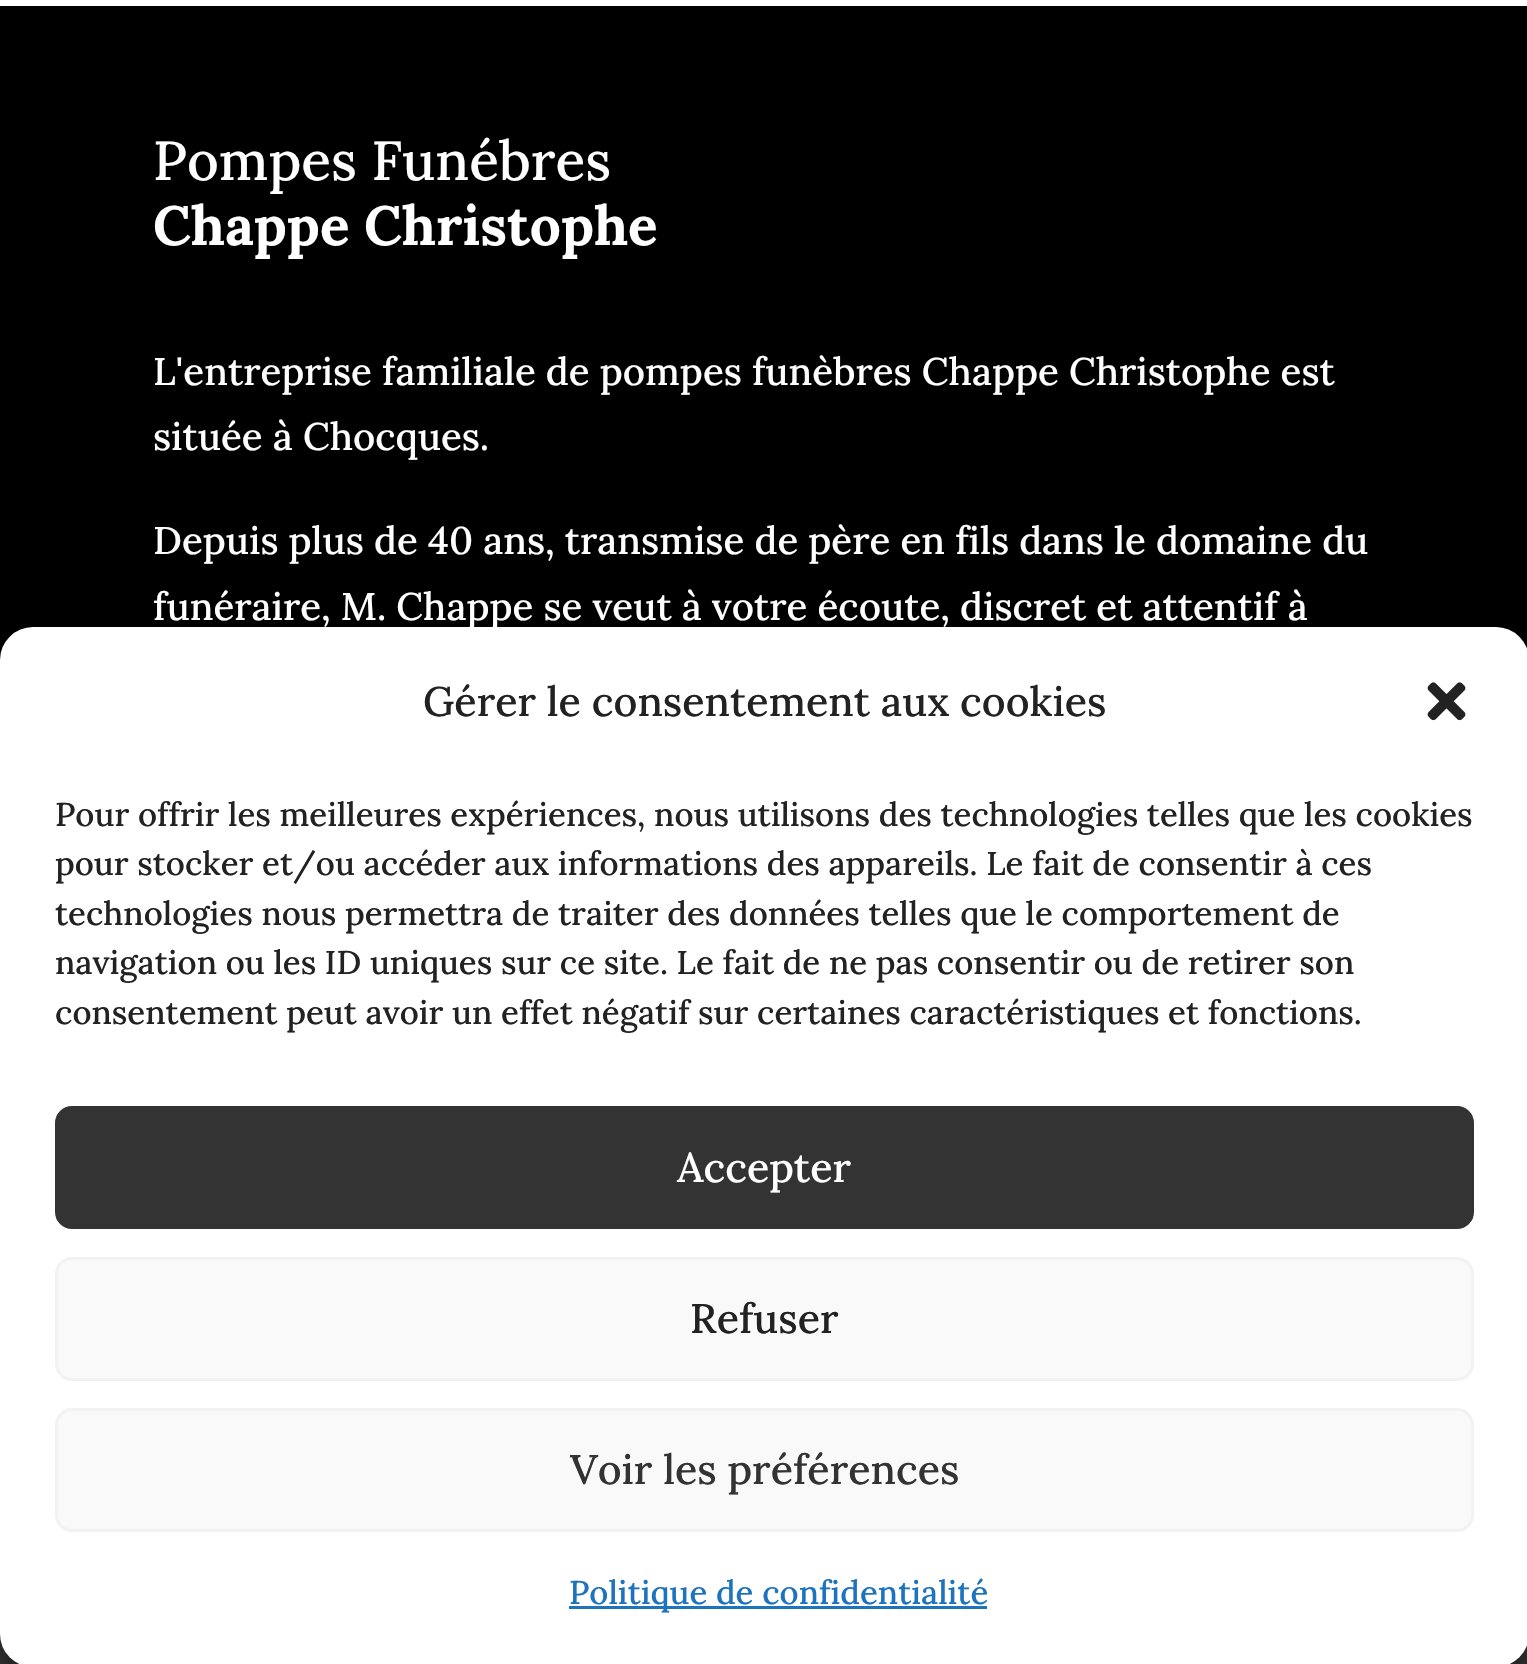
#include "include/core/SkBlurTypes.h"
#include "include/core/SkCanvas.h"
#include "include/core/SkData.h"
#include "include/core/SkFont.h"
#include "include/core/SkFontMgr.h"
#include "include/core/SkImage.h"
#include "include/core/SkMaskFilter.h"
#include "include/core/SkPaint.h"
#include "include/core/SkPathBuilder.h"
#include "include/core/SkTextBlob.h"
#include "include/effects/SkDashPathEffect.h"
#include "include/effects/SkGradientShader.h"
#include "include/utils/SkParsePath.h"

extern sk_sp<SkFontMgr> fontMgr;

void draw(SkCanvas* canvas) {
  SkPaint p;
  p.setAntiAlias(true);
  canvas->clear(SK_ColorWHITE);
  p.setColor(SK_ColorBLACK);
  canvas->drawRect(SkRect::MakeLTRB(0, 6, 1527, 660), p);
  p.setColor(SkColorSetRGB(53, 53, 53));
  canvas->drawRect(SkRect::MakeLTRB(0, 1634, 1527, 1664), p);
  p.setColor(SkColorSetARGB(59, 0, 0, 0));
  p.setMaskFilter(SkMaskFilter::MakeBlur(kNormal_SkBlurStyle, 8));
  canvas->drawRoundRect(SkRect::MakeLTRB(0, 644, 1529, 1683), 33, 33, p);
  p.setMaskFilter(nullptr);
  p.setColor(SkColorSetARGB(48, 0, 0, 0));
  p.setMaskFilter(SkMaskFilter::MakeBlur(kNormal_SkBlurStyle, 27.5f));
  canvas->drawRoundRect(SkRect::MakeLTRB(0, 655, 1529, 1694), 33, 33, p);
  p.setMaskFilter(nullptr);
  p.setColor(SK_ColorWHITE);
  canvas->drawRoundRect(SkRect::MakeLTRB(0, 627, 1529, 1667), 33, 33, p);
  canvas->drawImageRect(SkImages::DeferredFromEncodedData(SkData::MakeFromFileName("images/1.png")), SkRect::MakeLTRB(1427, 682, 1466, 721), SkSamplingOptions());
  p.setColor(SkColorSetRGB(51, 51, 51));
  canvas->drawRoundRect(SkRect::MakeLTRB(56.5f, 1107.5f, 1472.5f, 1227.5f), 15.5f, 15.5f, p);
  p.setStyle(SkPaint::kStroke_Style);
  p.setStrokeWidth(3);
  canvas->drawRoundRect(SkRect::MakeLTRB(56.5f, 1107.5f, 1472.5f, 1227.5f), 15.5f, 15.5f, p);
  p.setStyle(SkPaint::kFill_Style);
  p.setColor(SkColorSetRGB(249, 249, 249));
  canvas->drawRoundRect(SkRect::MakeLTRB(56.5f, 1258.5f, 1472.5f, 1379.5f), 15.5f, 15.5f, p);
  p.setStyle(SkPaint::kStroke_Style);
  p.setColor(SkColorSetRGB(242, 242, 242));
  canvas->drawRoundRect(SkRect::MakeLTRB(56.5f, 1258.5f, 1472.5f, 1379.5f), 15.5f, 15.5f, p);
  p.setStyle(SkPaint::kFill_Style);
  p.setColor(SkColorSetRGB(249, 249, 249));
  canvas->drawRoundRect(SkRect::MakeLTRB(56.5f, 1409.5f, 1472.5f, 1530.5f), 15.5f, 15.5f, p);
  p.setStyle(SkPaint::kStroke_Style);
  p.setColor(SkColorSetRGB(242, 242, 242));
  canvas->drawRoundRect(SkRect::MakeLTRB(56.5f, 1409.5f, 1472.5f, 1530.5f), 15.5f, 15.5f, p);
  p.setStyle(SkPaint::kFill_Style);
  p.setColor(SkColorSetRGB(30, 115, 190));
  canvas->drawRect(SkRect::MakeLTRB(569, 1606, 987, 1609), p);
  SkFont font1(fontMgr->matchFamilyStyle("Lora", SkFontStyle(500, SkFontStyle::kNormal_Width, SkFontStyle::kUpright_Slant)), 55);
  font1.setSubpixel(true);
  p.setColor(SK_ColorWHITE);
  canvas->drawString("Pompes Funébres", 153, 180, font1, p);
  SkFont font2(fontMgr->matchFamilyStyle("Lora", SkFontStyle::Bold()), 55);
  font2.setSubpixel(true);
  canvas->drawString("Chappe Christophe", 153, 245, font2, p);
  SkFont font3(fontMgr->matchFamilyStyle("Lora", SkFontStyle(500, SkFontStyle::kNormal_Width, SkFontStyle::kUpright_Slant)), 38.5f);
  font3.setSubpixel(true);
  canvas->drawString("L'entreprise familiale de pompes funèbres Chappe Christophe est", 153, 385, font3, p);
  canvas->drawString("située à Chocques.", 153, 450, font3, p);
  canvas->drawString("Depuis plus de 40 ans, transmise de père en fils dans le domaine du", 153, 554, font3, p);
  canvas->drawString("funéraire, M. Chappe se veut à votre écoute, discret et attentif à", 153, 620, font3, p);
  SkFont font4(fontMgr->matchFamilyStyle("Lora", SkFontStyle(500, SkFontStyle::kNormal_Width, SkFontStyle::kUpright_Slant)), 41.25f);
  font4.setSubpixel(true);
  p.setColor(SkColorSetRGB(34, 34, 34));
  canvas->drawString("Gérer le consentement aux cookies", 423, 716, font4, p);
  SkFont font5(fontMgr->matchFamilyStyle("Lora", SkFontStyle(500, SkFontStyle::kNormal_Width, SkFontStyle::kUpright_Slant)), 33);
  font5.setSubpixel(true);
  canvas->drawString("Pour offrir les meilleures expériences, nous utilisons des technologies telles que les cookies", 55, 826, font5, p);
  canvas->drawString("pour stocker et/ou accéder aux informations des appareils. Le fait de consentir à ces", 55, 875, font5, p);
  canvas->drawString("technologies nous permettra de traiter des données telles que le comportement de", 55, 925, font5, p);
  canvas->drawString("navigation ou les ID uniques sur ce site. Le fait de ne pas consentir ou de retirer son", 55, 974, font5, p);
  canvas->drawString("consentement peut avoir un effet négatif sur certaines caractéristiques et fonctions.", 55, 1024, font5, p);
  p.setColor(SK_ColorWHITE);
  canvas->drawString("Accepter", 677, 1182, font4, p);
  p.setColor(SkColorSetRGB(34, 34, 34));
  canvas->drawString("Refuser", 690, 1333, font4, p);
  p.setColor(SkColorSetRGB(51, 51, 51));
  canvas->drawString("Voir les préférences", 570, 1484, font4, p);
  p.setColor(SkColorSetRGB(30, 115, 190));
  canvas->drawString("Politique de confidentialité", 569, 1604, font5, p);
}
